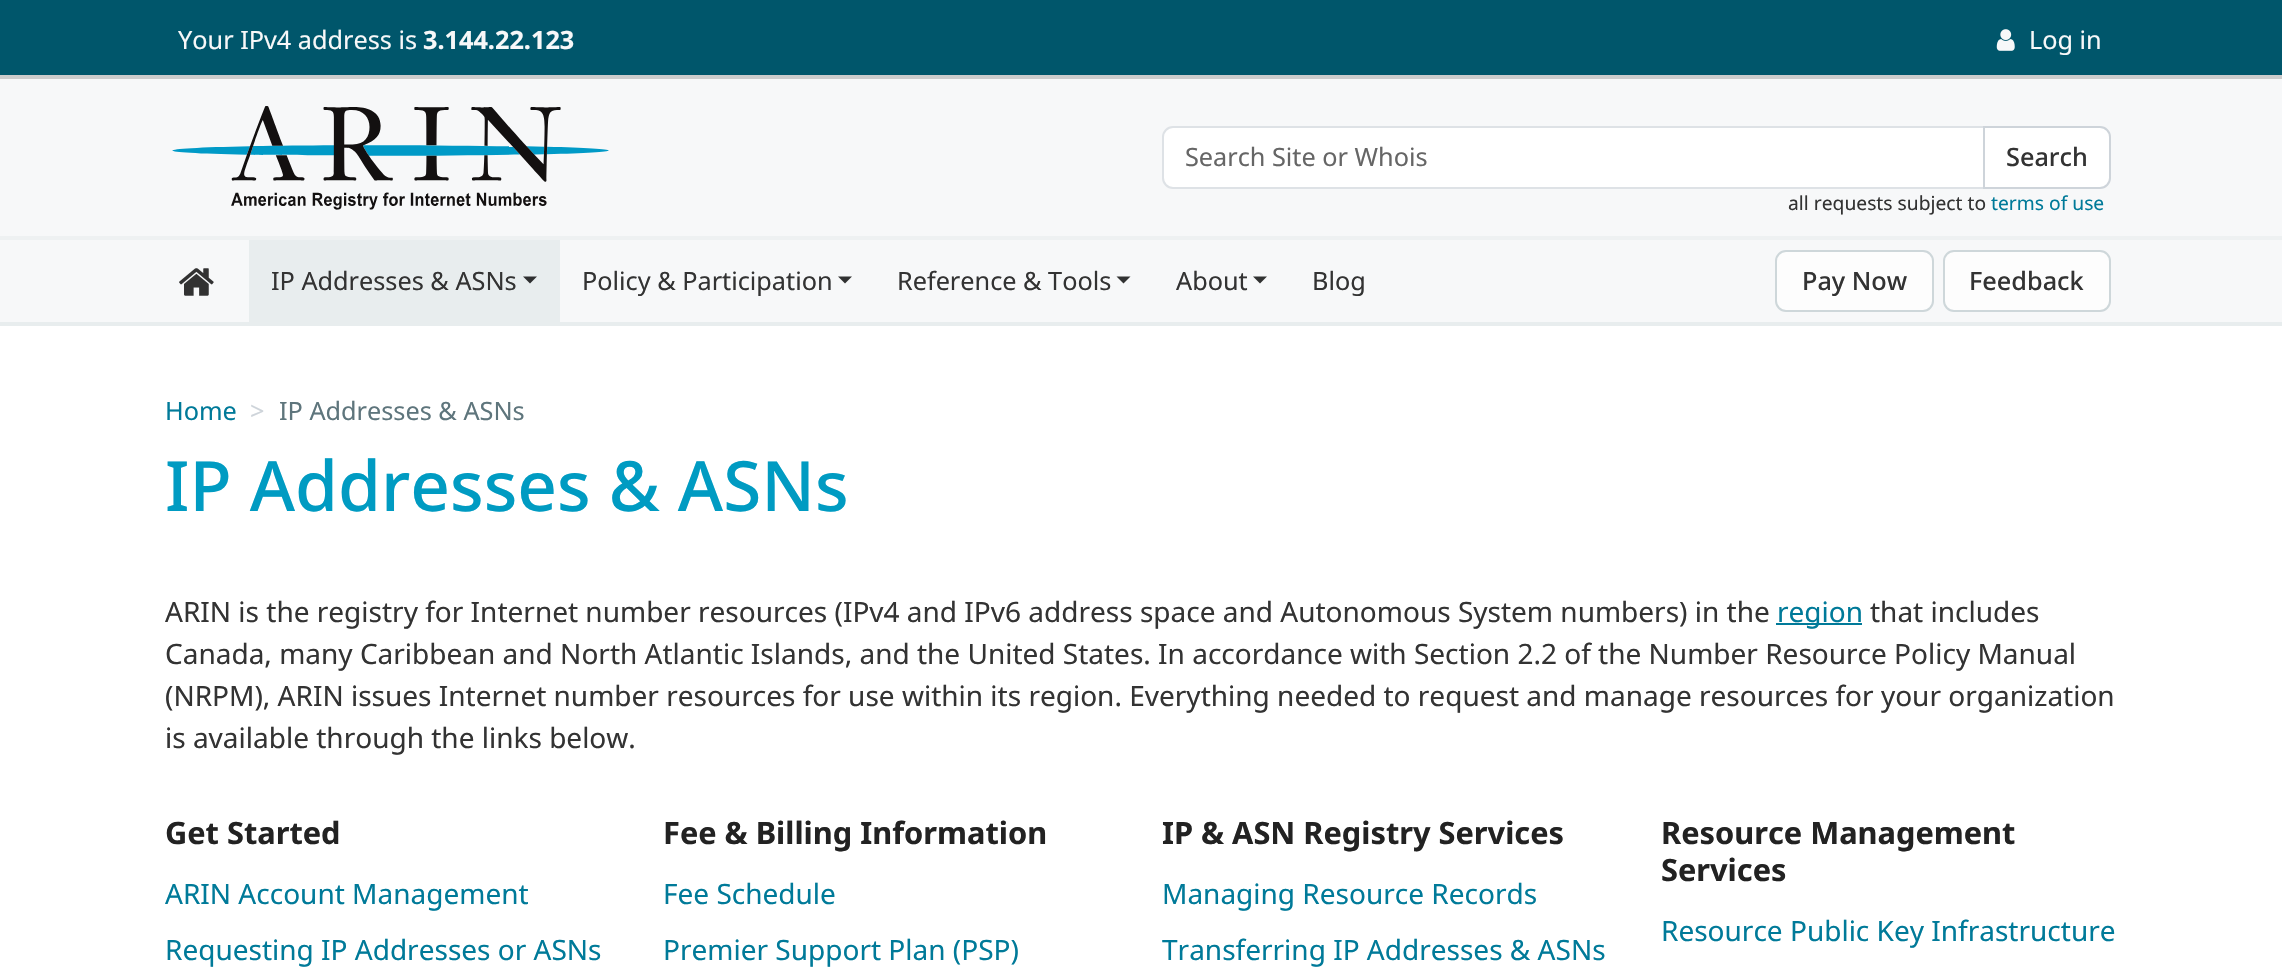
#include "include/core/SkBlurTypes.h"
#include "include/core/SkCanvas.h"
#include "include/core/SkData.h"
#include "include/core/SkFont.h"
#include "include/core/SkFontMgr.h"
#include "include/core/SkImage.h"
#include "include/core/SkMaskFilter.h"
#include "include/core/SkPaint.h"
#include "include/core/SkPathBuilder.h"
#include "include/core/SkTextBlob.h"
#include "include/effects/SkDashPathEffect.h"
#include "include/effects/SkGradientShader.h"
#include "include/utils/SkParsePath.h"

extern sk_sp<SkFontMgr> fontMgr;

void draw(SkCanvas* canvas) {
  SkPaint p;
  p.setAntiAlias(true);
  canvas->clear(SK_ColorWHITE);
  p.setColor(SkColorSetRGB(0, 86, 107));
  canvas->drawRect(SkRect::MakeLTRB(0, 0, 2282, 75), p);
  p.setColor(SkColorSetRGB(204, 204, 204));
  canvas->drawRect(SkRect::MakeLTRB(0, 75, 2282, 79), p);
  canvas->drawImageRect(SkImages::DeferredFromEncodedData(SkData::MakeFromFileName("images/1.png")), SkRect::MakeLTRB(1996, 29, 2015, 51), SkSamplingOptions());
  p.setColor(SkColorSetRGB(247, 248, 249));
  canvas->drawRect(SkRect::MakeLTRB(0, 79, 2282, 236), p);
  canvas->drawImageRect(SkImages::DeferredFromEncodedData(SkData::MakeFromFileName("images/2.png")), SkRect::MakeLTRB(172, 106, 609, 210), SkSamplingOptions());
  p.setColor(SK_ColorWHITE);
  canvas->drawPath(SkPathBuilder().moveTo(1173, 127).lineTo(1984, 127).lineTo(1984, 188).lineTo(1173, 188).cubicTo(1167.5f, 188, 1163, 183.5f, 1163, 178).lineTo(1163, 137).cubicTo(1163, 131.5f, 1167.5f, 127, 1173, 127).close().detach(), p);
  p.setStyle(SkPaint::kStroke_Style);
  p.setStrokeWidth(2);
  p.setColor(SkColorSetRGB(222, 226, 230));
  canvas->drawPath(SkPathBuilder().moveTo(1173, 127).lineTo(1984, 127).lineTo(1984, 188).lineTo(1173, 188).cubicTo(1167.5f, 188, 1163, 183.5f, 1163, 178).lineTo(1163, 137).cubicTo(1163, 131.5f, 1167.5f, 127, 1173, 127).close().detach(), p);
  p.setStyle(SkPaint::kFill_Style);
  p.setColor(SK_ColorWHITE);
  canvas->drawPath(SkPathBuilder().moveTo(1984, 127).lineTo(2100, 127).cubicTo(2105.5f, 127, 2110, 131.5f, 2110, 137).lineTo(2110, 178).cubicTo(2110, 183.5f, 2105.5f, 188, 2100, 188).lineTo(1984, 188).close().detach(), p);
  p.setStyle(SkPaint::kStroke_Style);
  p.setColor(SkColorSetRGB(206, 212, 218));
  canvas->drawPath(SkPathBuilder().moveTo(1984, 127).lineTo(2100, 127).cubicTo(2105.5f, 127, 2110, 131.5f, 2110, 137).lineTo(2110, 178).cubicTo(2110, 183.5f, 2105.5f, 188, 2100, 188).lineTo(1984, 188).close().detach(), p);
  p.setStyle(SkPaint::kFill_Style);
  p.setColor(SkColorSetRGB(247, 248, 249));
  canvas->drawRect(SkRect::MakeLTRB(0, 240, 2282, 322), p);
  p.setColor(SkColorSetRGB(238, 241, 242));
  canvas->drawRect(SkRect::MakeLTRB(0, 236, 2282, 240), p);
  p.setColor(SkColorSetRGB(232, 237, 238));
  canvas->drawRect(SkRect::MakeLTRB(0, 322, 2282, 326), p);
  canvas->drawImageRect(SkImages::DeferredFromEncodedData(SkData::MakeFromFileName("images/3.png")), SkRect::MakeLTRB(179, 268, 214, 296), SkSamplingOptions());
  canvas->drawRect(SkRect::MakeLTRB(249, 240, 560, 322), p);
  p.setColor(SkColorSetRGB(46, 47, 48));
  canvas->drawPath(SkPathBuilder().moveTo(523, 276.5f).lineTo(537, 276.5f).lineTo(530, 283.5f).close().detach(), p);
  p.setColor(SkColorSetRGB(49, 50, 50));
  canvas->drawPath(SkPathBuilder().moveTo(838, 276.5f).lineTo(852, 276.5f).lineTo(845, 283.5f).close().detach(), p);
  canvas->drawPath(SkPathBuilder().moveTo(1116.5f, 276.5f).lineTo(1130.5f, 276.5f).lineTo(1123.5f, 283.5f).close().detach(), p);
  canvas->drawPath(SkPathBuilder().moveTo(1253, 276.5f).lineTo(1267, 276.5f).lineTo(1260, 283.5f).close().detach(), p);
  p.setColor(SkColorSetRGB(253, 253, 253));
  canvas->drawRoundRect(SkRect::MakeLTRB(1776, 251, 1933, 311), 10, 10, p);
  p.setStyle(SkPaint::kStroke_Style);
  p.setColor(SkColorSetRGB(206, 215, 218));
  canvas->drawRoundRect(SkRect::MakeLTRB(1776, 251, 1933, 311), 10, 10, p);
  p.setStyle(SkPaint::kFill_Style);
  p.setColor(SkColorSetRGB(253, 253, 253));
  canvas->drawRoundRect(SkRect::MakeLTRB(1944, 251, 2110, 311), 10, 10, p);
  p.setStyle(SkPaint::kStroke_Style);
  p.setColor(SkColorSetRGB(206, 215, 218));
  canvas->drawRoundRect(SkRect::MakeLTRB(1944, 251, 2110, 311), 10, 10, p);
  p.setStyle(SkPaint::kFill_Style);
  p.setColor(SkColorSetRGB(0, 122, 153));
  canvas->drawRect(SkRect::MakeLTRB(1776, 623, 1862, 625), p);
  SkFont font1(fontMgr->matchFamilyStyle("Noto Sans", SkFontStyle::Normal()), 25.25f);
  font1.setSubpixel(true);
  p.setColor(SkColorSetRGB(247, 248, 249));
  canvas->drawString("Your IPv4 address is", 178, 49, font1, p);
  SkFont font2(fontMgr->matchFamilyStyle("Noto Sans", SkFontStyle::Bold()), 25.25f);
  font2.setSubpixel(true);
  canvas->drawString("3.144.22.123", 423, 49, font2, p);
  canvas->drawString("Log in", 2029, 49, font1, p);
  p.setColor(SkColorSetRGB(102, 102, 102));
  canvas->drawString("Search Site or Whois", 1185, 166, font1, p);
  SkFont font3(fontMgr->matchFamilyStyle("Noto Sans", SkFontStyle(500, SkFontStyle::kNormal_Width, SkFontStyle::kUpright_Slant)), 25.25f);
  font3.setSubpixel(true);
  p.setColor(SkColorSetRGB(51, 51, 51));
  canvas->drawString("Search", 2006, 166, font3, p);
  SkFont font4(fontMgr->matchFamilyStyle("Noto Sans", SkFontStyle::Normal()), 19.25f);
  font4.setSubpixel(true);
  canvas->drawString("all requests subject to", 1788, 210, font4, p);
  p.setColor(SkColorSetRGB(0, 122, 153));
  canvas->drawString("terms of use", 1991, 210, font4, p);
  p.setColor(SkColorSetRGB(51, 51, 51));
  canvas->drawString("IP Addresses & ASNs", 271, 290, font1, p);
  canvas->drawString("Policy & Participation", 582, 290, font1, p);
  canvas->drawString("Reference & Tools", 897, 290, font1, p);
  canvas->drawString("About", 1176, 290, font1, p);
  canvas->drawString("Blog", 1312, 290, font1, p);
  canvas->drawString("Pay Now", 1802, 290, font3, p);
  canvas->drawString("Feedback", 1969, 290, font3, p);
  p.setColor(SkColorSetRGB(0, 122, 153));
  canvas->drawString("Home", 165, 420, font1, p);
  p.setColor(SkColorSetRGB(206, 212, 218));
  canvas->drawString(">", 250, 420, font1, p);
  p.setColor(SkColorSetRGB(94, 117, 124));
  canvas->drawString("IP Addresses & ASNs", 279, 420, font1, p);
  SkFont font5(fontMgr->matchFamilyStyle("Noto Sans", SkFontStyle(500, SkFontStyle::kNormal_Width, SkFontStyle::kUpright_Slant)), 69.25f);
  font5.setSubpixel(true);
  p.setColor(SkColorSetRGB(0, 155, 194));
  canvas->drawString("IP Addresses & ASNs", 165, 511, font5, p);
  SkFont font6(fontMgr->matchFamilyStyle("Noto Sans", SkFontStyle::Normal()), 28);
  font6.setSubpixel(true);
  p.setColor(SkColorSetRGB(51, 51, 51));
  canvas->drawString("ARIN is the registry for Internet number resources (IPv4 and IPv6 address space and Autonomous System numbers) in the", 165, 622, font6, p);
  p.setColor(SkColorSetRGB(0, 122, 153));
  canvas->drawString("region", 1777, 622, font6, p);
  p.setColor(SkColorSetRGB(51, 51, 51));
  canvas->drawString("that includes", 1870, 622, font6, p);
  canvas->drawString("Canada, many Caribbean and North Atlantic Islands, and the United States. In accordance with Section 2.2 of the Number Resource Policy Manual", 165, 664, font6, p);
  canvas->drawString("(NRPM), ARIN issues Internet number resources for use within its region. Everything needed to request and manage resources for your organization", 165, 706, font6, p);
  canvas->drawString("is available through the links below.", 165, 748, font6, p);
  SkFont font7(fontMgr->matchFamilyStyle("Noto Sans", SkFontStyle::Bold()), 30.75f);
  font7.setSubpixel(true);
  p.setColor(SkColorSetRGB(34, 34, 34));
  canvas->drawString("Get Started", 165, 844, font7, p);
  p.setColor(SkColorSetRGB(0, 122, 153));
  canvas->drawString("ARIN Account Management", 165, 904, font6, p);
  canvas->drawString("Requesting IP Addresses or ASNs", 165, 960, font6, p);
  p.setColor(SkColorSetRGB(34, 34, 34));
  canvas->drawString("Fee & Billing Information", 663, 844, font7, p);
  p.setColor(SkColorSetRGB(0, 122, 153));
  canvas->drawString("Fee Schedule", 663, 904, font6, p);
  canvas->drawString("Premier Support Plan (PSP)", 663, 960, font6, p);
  p.setColor(SkColorSetRGB(34, 34, 34));
  canvas->drawString("IP & ASN Registry Services", 1162, 844, font7, p);
  p.setColor(SkColorSetRGB(0, 122, 153));
  canvas->drawString("Managing Resource Records", 1162, 904, font6, p);
  canvas->drawString("Transferring IP Addresses & ASNs", 1162, 960, font6, p);
  p.setColor(SkColorSetRGB(34, 34, 34));
  canvas->drawString("Resource Management", 1661, 844, font7, p);
  canvas->drawString("Services", 1661, 881, font7, p);
  p.setColor(SkColorSetRGB(0, 122, 153));
  canvas->drawString("Resource Public Key Infrastructure", 1661, 941, font6, p);
}
